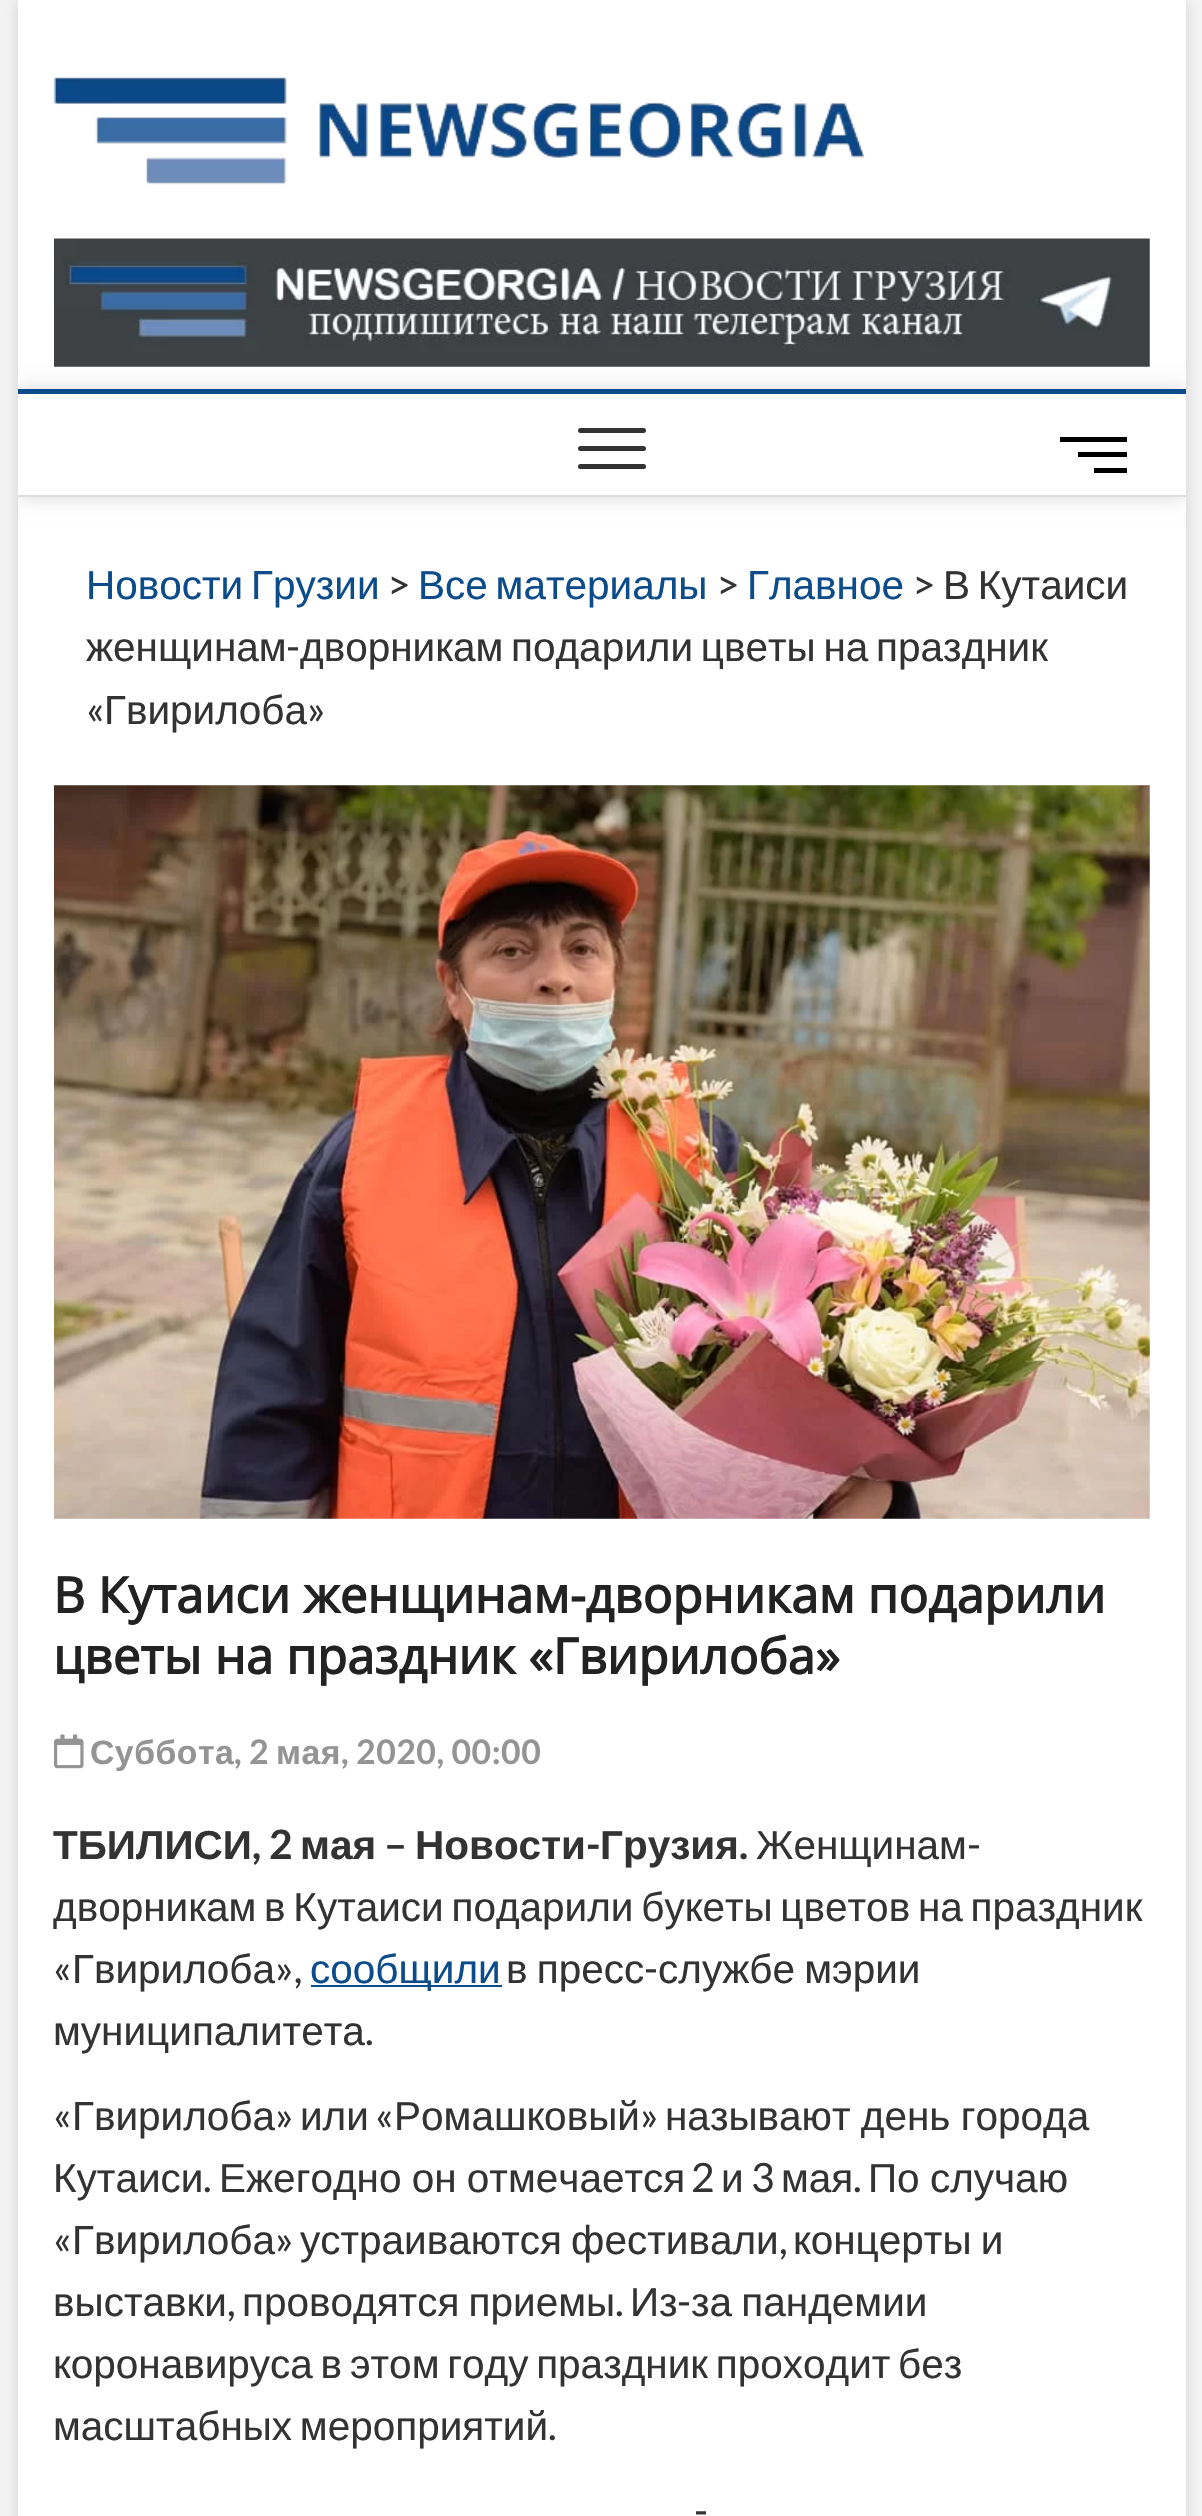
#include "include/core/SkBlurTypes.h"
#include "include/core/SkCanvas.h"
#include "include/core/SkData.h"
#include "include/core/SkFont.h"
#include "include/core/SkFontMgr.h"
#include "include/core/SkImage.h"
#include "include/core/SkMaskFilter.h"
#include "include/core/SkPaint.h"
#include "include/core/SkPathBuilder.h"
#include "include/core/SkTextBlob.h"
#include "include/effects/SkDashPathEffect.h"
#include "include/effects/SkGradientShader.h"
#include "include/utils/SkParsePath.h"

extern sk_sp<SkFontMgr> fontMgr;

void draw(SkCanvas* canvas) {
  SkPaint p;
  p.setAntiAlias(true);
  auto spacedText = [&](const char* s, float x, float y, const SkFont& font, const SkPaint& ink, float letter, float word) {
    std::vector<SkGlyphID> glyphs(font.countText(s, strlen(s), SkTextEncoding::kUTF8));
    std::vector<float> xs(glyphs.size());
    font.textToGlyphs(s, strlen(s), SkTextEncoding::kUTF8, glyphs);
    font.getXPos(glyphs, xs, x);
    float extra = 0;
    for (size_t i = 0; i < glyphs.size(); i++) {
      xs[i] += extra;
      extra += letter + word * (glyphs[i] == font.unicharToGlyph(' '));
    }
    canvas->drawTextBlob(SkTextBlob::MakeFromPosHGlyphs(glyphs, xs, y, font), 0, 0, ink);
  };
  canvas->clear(SkColorSetRGB(244, 244, 244));
  p.setColor(SkColorSetARGB(38, 0, 0, 0));
  p.setMaskFilter(SkMaskFilter::MakeBlur(kNormal_SkBlurStyle, 7));
  canvas->drawRect(SkRect::MakeLTRB(18, 2, 1186, 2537), p);
  p.setMaskFilter(nullptr);
  p.setColor(SK_ColorWHITE);
  canvas->drawRect(SkRect::MakeLTRB(18, 0, 1186, 2516), p);
  canvas->drawImageRect(SkImages::DeferredFromEncodedData(SkData::MakeFromFileName("images/1.png")), SkRect::MakeLTRB(54, 76, 864, 185), SkSamplingOptions());
  canvas->drawImageRect(SkImages::DeferredFromEncodedData(SkData::MakeFromFileName("images/2.png")), SkRect::MakeLTRB(54, 238, 1150, 367), SkSamplingOptions());
  canvas->save();
  canvas->clipRect(SkRect::MakeLTRB(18, 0, 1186, 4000));
  p.setColor(SkColorSetARGB(38, 0, 0, 0));
  p.setMaskFilter(SkMaskFilter::MakeBlur(kNormal_SkBlurStyle, 9));
  canvas->drawRect(SkRect::MakeLTRB(18, 389, 1186, 497), p);
  p.setMaskFilter(nullptr);
  canvas->restore();
  p.setColor(SK_ColorWHITE);
  canvas->drawRect(SkRect::MakeLTRB(18, 394, 1186, 495), p);
  p.setColor(SkColorSetRGB(12, 76, 138));
  canvas->drawRect(SkRect::MakeLTRB(18, 389, 1186, 394), p);
  p.setColor(SkColorSetRGB(221, 221, 221));
  canvas->drawRect(SkRect::MakeLTRB(18, 495, 1186, 497), p);
  p.setColor(SkColorSetRGB(51, 51, 51));
  canvas->drawRoundRect(SkRect::MakeLTRB(578, 446, 646, 451), 2.5f, 2.5f, p);
  canvas->drawRoundRect(SkRect::MakeLTRB(578, 428, 646, 433), 2.5f, 2.5f, p);
  canvas->drawRoundRect(SkRect::MakeLTRB(578, 464, 646, 469), 2.5f, 2.5f, p);
  p.setColor(SK_ColorBLACK);
  canvas->drawRect(SkRect::MakeLTRB(1078, 452, 1127, 457), p);
  canvas->drawRect(SkRect::MakeLTRB(1060, 437, 1127, 442), p);
  canvas->drawRect(SkRect::MakeLTRB(1094, 468, 1127, 473), p);
  canvas->drawImageRect(SkImages::DeferredFromEncodedData(SkData::MakeFromFileName("images/3.png")), SkRect::MakeLTRB(54, 785, 1150, 1519), SkSamplingOptions());
  canvas->drawImageRect(SkImages::DeferredFromEncodedData(SkData::MakeFromFileName("images/4.png")), SkRect::MakeLTRB(54, 1734, 84, 1769), SkSamplingOptions());
  p.setColor(SkColorSetRGB(12, 76, 138));
  canvas->drawRect(SkRect::MakeLTRB(311, 1985, 502, 1987), p);
  SkFont font1(fontMgr->matchFamilyStyle("Liberation Sans", SkFontStyle::Normal()), 40.5f);
  font1.setSubpixel(true);
  spacedText("Новости Грузии", 86, 599, font1, p, 0, -3.5f);
  SkFont font2(fontMgr->matchFamilyStyle("Lato", SkFontStyle::Normal()), 40.5f);
  font2.setSubpixel(true);
  p.setColor(SkColorSetRGB(51, 51, 51));
  canvas->drawString(">", 387, 599, font2, p);
  p.setColor(SkColorSetRGB(12, 76, 138));
  spacedText("Все материалы", 418, 599, font1, p, 0, -3.5f);
  p.setColor(SkColorSetRGB(51, 51, 51));
  canvas->drawString(">", 716, 599, font2, p);
  p.setColor(SkColorSetRGB(12, 76, 138));
  canvas->drawString("Главное", 747, 599, font1, p);
  p.setColor(SkColorSetRGB(51, 51, 51));
  canvas->drawString(">", 912, 599, font2, p);
  spacedText("В Кутаиси", 943, 599, font1, p, 0, -3.5f);
  canvas->drawString("женщинам", 86, 661, font1, p);
  canvas->drawString("-", 286, 661, font2, p);
  spacedText("дворникам подарили цветы на праздник", 300, 661, font1, p, 0, -3.5f);
  canvas->drawString("«", 86, 724, font2, p);
  canvas->drawString("Гвирилоба", 104, 724, font1, p);
  canvas->drawString("»", 307, 724, font2, p);
  SkFont font3(fontMgr->matchFamilyStyle("Open Sans", SkFontStyle::Bold()), 49.5f);
  font3.setSubpixel(true);
  p.setColor(SkColorSetRGB(34, 34, 34));
  canvas->drawString("В Кутаиси женщинам-дворникам подарили", 53, 1613, font3, p);
  canvas->drawString("цветы на праздник «Гвирилоба»", 53, 1674, font3, p);
  SkFont font4(fontMgr->matchFamilyStyle("Liberation Sans", SkFontStyle::Bold()), 33.75f);
  font4.setSubpixel(true);
  p.setColor(SkColorSetRGB(148, 148, 148));
  spacedText("Суббота", 90, 1764, font4, p, 0.5f, 0);
  SkFont font5(fontMgr->matchFamilyStyle("Lato", SkFontStyle::Bold()), 33.75f);
  font5.setSubpixel(true);
  spacedText(", 2", 234, 1764, font5, p, 0.5f, 0);
  spacedText("мая", 276, 1764, font4, p, 0.5f, 0);
  spacedText(", 2020, 00:00", 341, 1764, font5, p, 0.5f, 0);
  SkFont font6(fontMgr->matchFamilyStyle("Liberation Sans", SkFontStyle::Bold()), 40.5f);
  font6.setSubpixel(true);
  p.setColor(SkColorSetRGB(51, 51, 51));
  canvas->drawString("ТБИЛИСИ", 53, 1859, font6, p);
  SkFont font7(fontMgr->matchFamilyStyle("Lato", SkFontStyle::Bold()), 40.5f);
  font7.setSubpixel(true);
  canvas->drawString(", 2", 252, 1859, font7, p);
  canvas->drawString("мая", 300, 1859, font6, p);
  canvas->drawString("–", 384, 1859, font7, p);
  canvas->drawString("Новости", 415, 1859, font6, p);
  canvas->drawString("-", 586, 1859, font7, p);
  canvas->drawString("Грузия", 600, 1859, font6, p);
  canvas->drawString("Женщинам", 756, 1859, font1, p);
  canvas->drawString("-", 967, 1859, font2, p);
  canvas->drawString(".", 739, 1859, font7, p);
  spacedText("дворникам в Кутаиси подарили букеты цветов на праздник", 53, 1921, font1, p, 0, -3.5f);
  canvas->drawString("«", 53, 1983, font2, p);
  canvas->drawString("Гвирилоба", 72, 1983, font1, p);
  canvas->drawString("»,", 275, 1983, font2, p);
  p.setColor(SkColorSetRGB(12, 76, 138));
  canvas->drawString("сообщили", 310, 1983, font1, p);
  p.setColor(SkColorSetRGB(51, 51, 51));
  spacedText("в пресс", 506, 1983, font1, p, 0, -2);
  canvas->drawString("-", 644, 1983, font2, p);
  spacedText("службе мэрии", 658, 1983, font1, p, 0, -2);
  canvas->drawString("муниципалитета", 53, 2045, font1, p);
  canvas->drawString(".", 365, 2045, font2, p);
  canvas->drawString("«", 53, 2130, font2, p);
  canvas->drawString("Гвирилоба", 72, 2130, font1, p);
  canvas->drawString("»", 275, 2130, font2, p);
  canvas->drawString("или", 300, 2130, font1, p);
  canvas->drawString("«", 375, 2130, font2, p);
  canvas->drawString("Ромашковый", 394, 2130, font1, p);
  canvas->drawString("»", 640, 2130, font2, p);
  spacedText("называют день города", 665, 2130, font1, p, 0, -1);
  canvas->drawString("Кутаиси", 53, 2192, font1, p);
  canvas->drawString(".", 203, 2192, font2, p);
  spacedText("Ежегодно он отмечается", 219, 2192, font1, p, 0, -1);
  canvas->drawString("2", 691, 2192, font2, p);
  canvas->drawString("и", 721, 2192, font1, p);
  canvas->drawString("3", 751, 2192, font2, p);
  canvas->drawString("мая", 781, 2192, font1, p);
  canvas->drawString(".", 853, 2192, font2, p);
  spacedText("По случаю", 868, 2192, font1, p, 0, -1);
  canvas->drawString("«", 53, 2254, font2, p);
  canvas->drawString("Гвирилоба", 72, 2254, font1, p);
  canvas->drawString("»", 275, 2254, font2, p);
  spacedText("устраиваются фестивали", 300, 2254, font1, p, 0, -2);
  spacedText("концерты и", 793, 2254, font1, p, 0, -2);
  canvas->drawString(",", 779, 2254, font2, p);
  canvas->drawString("выставки", 53, 2316, font1, p);
  spacedText("проводятся приемы", 242, 2316, font1, p, 0, -2);
  canvas->drawString("Из", 630, 2316, font1, p);
  canvas->drawString("-", 677, 2316, font2, p);
  spacedText("за пандемии", 691, 2316, font1, p, 0, -2);
  canvas->drawString(",", 227, 2316, font2, p);
  canvas->drawString(".", 615, 2316, font2, p);
  spacedText("коронавируса в этом году праздник проходит без", 53, 2378, font1, p, 0, -3.5f);
  spacedText("масштабных мероприятий", 53, 2440, font1, p, 0, -3.5f);
  canvas->drawString(".", 548, 2440, font2, p);
  canvas->drawString("-", 694, 2525, font2, p);
}
